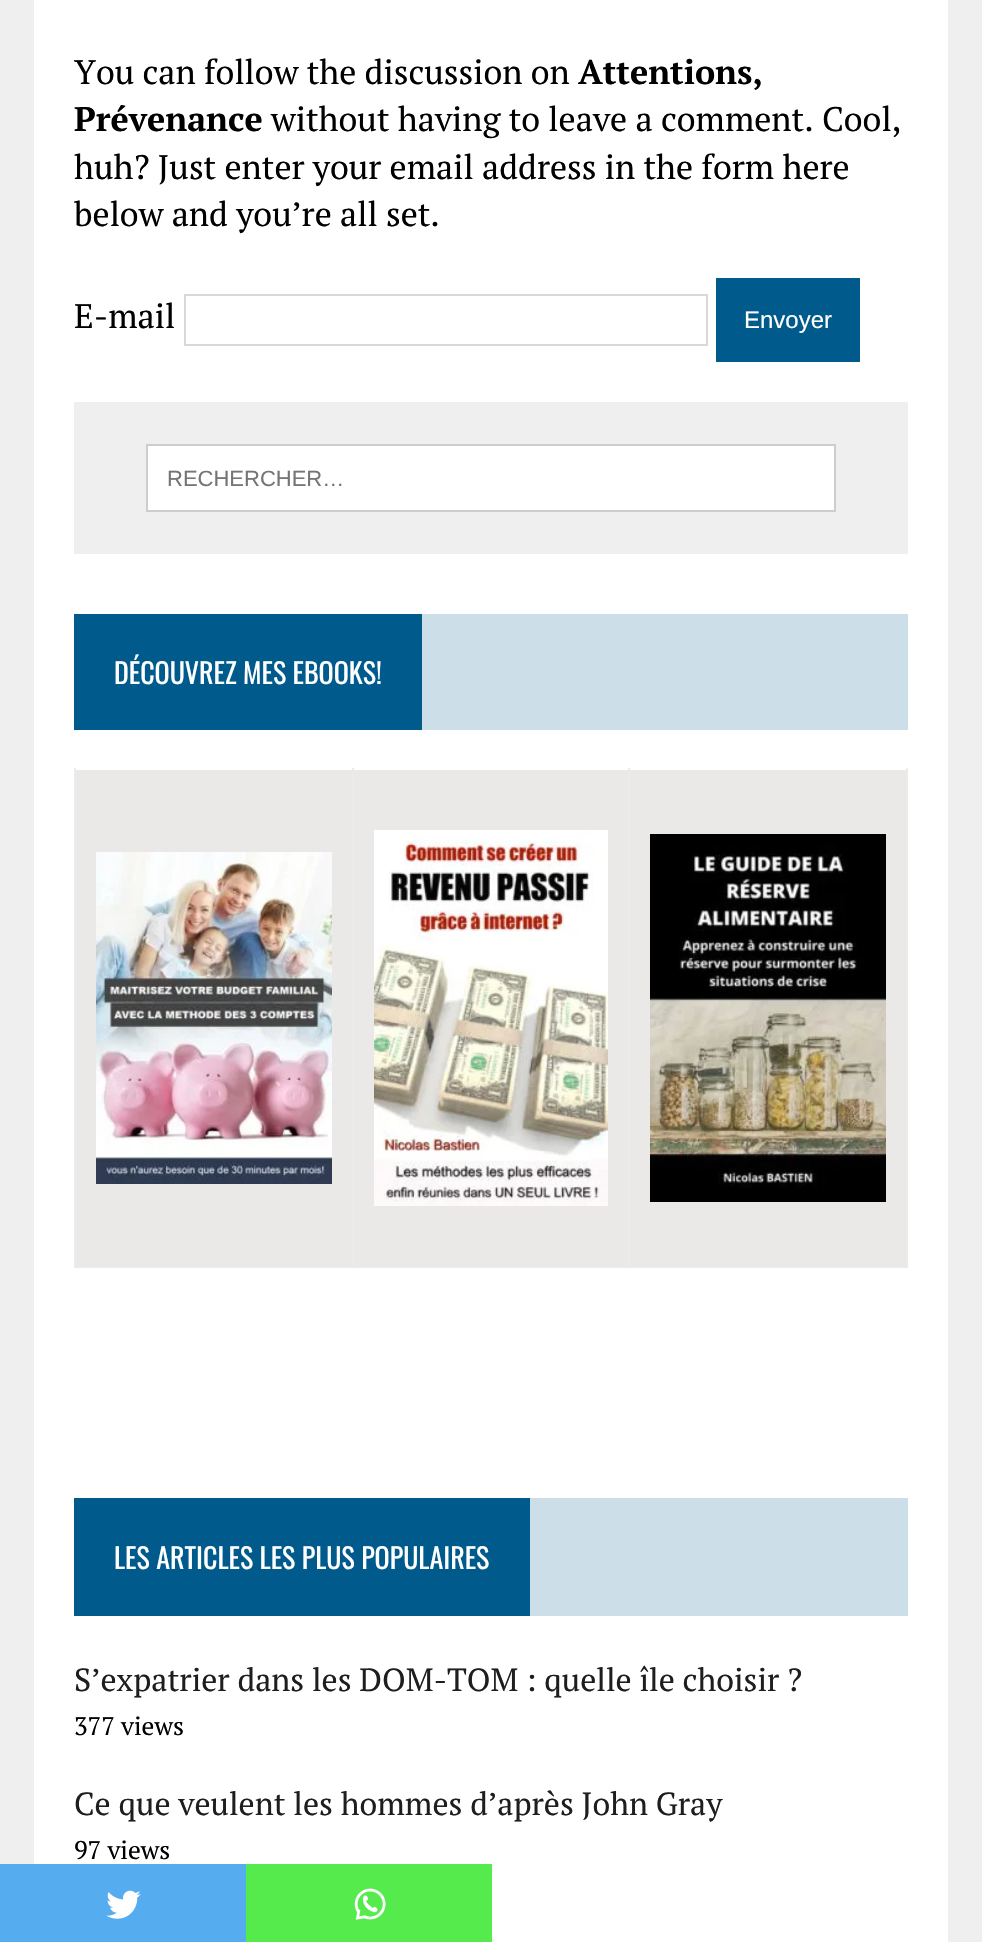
#include "include/core/SkBlurTypes.h"
#include "include/core/SkCanvas.h"
#include "include/core/SkData.h"
#include "include/core/SkFont.h"
#include "include/core/SkFontMgr.h"
#include "include/core/SkImage.h"
#include "include/core/SkMaskFilter.h"
#include "include/core/SkPaint.h"
#include "include/core/SkPathBuilder.h"
#include "include/core/SkTextBlob.h"
#include "include/effects/SkDashPathEffect.h"
#include "include/effects/SkGradientShader.h"
#include "include/utils/SkParsePath.h"

extern sk_sp<SkFontMgr> fontMgr;

void draw(SkCanvas* canvas) {
  SkPaint p;
  p.setAntiAlias(true);
  canvas->clear(SkColorSetRGB(239, 239, 239));
  p.setColor(SK_ColorWHITE);
  canvas->drawRect(SkRect::MakeLTRB(34, 0, 948, 1942), p);
  p.setStyle(SkPaint::kStroke_Style);
  p.setStrokeWidth(2);
  p.setColor(SkColorSetRGB(215, 216, 216));
  canvas->drawRect(SkRect::MakeLTRB(185, 295, 707, 345), p);
  p.setStyle(SkPaint::kFill_Style);
  p.setColor(SkColorSetRGB(0, 90, 140));
  canvas->drawRect(SkRect::MakeLTRB(716, 278, 860, 362), p);
  p.setColor(SkColorSetRGB(85, 172, 238));
  canvas->drawRect(SkRect::MakeLTRB(0, 1864, 246, 1942), p);
  canvas->drawImageRect(SkImages::DeferredFromEncodedData(SkData::MakeFromFileName("images/1.png")), SkRect::MakeLTRB(106, 1890, 141, 1919), SkSamplingOptions());
  p.setColor(SkColorSetRGB(85, 235, 76));
  canvas->drawRect(SkRect::MakeLTRB(246, 1864, 492, 1942), p);
  canvas->drawImageRect(SkImages::DeferredFromEncodedData(SkData::MakeFromFileName("images/2.png")), SkRect::MakeLTRB(354, 1888, 386, 1920), SkSamplingOptions());
  p.setColor(SkColorSetRGB(239, 239, 239));
  canvas->drawRect(SkRect::MakeLTRB(74, 402, 908, 554), p);
  p.setColor(SK_ColorWHITE);
  canvas->drawRect(SkRect::MakeLTRB(147, 445, 835, 511), p);
  p.setStyle(SkPaint::kStroke_Style);
  p.setColor(SkColorSetRGB(205, 205, 205));
  canvas->drawRect(SkRect::MakeLTRB(147, 445, 835, 511), p);
  p.setStyle(SkPaint::kFill_Style);
  p.setColor(SkColorSetRGB(204, 222, 232));
  canvas->drawRect(SkRect::MakeLTRB(422, 614, 908, 730), p);
  p.setColor(SkColorSetRGB(0, 90, 140));
  canvas->drawRect(SkRect::MakeLTRB(74, 614, 422, 730), p);
  p.setColor(SkColorSetRGB(234, 233, 232));
  canvas->drawRect(SkRect::MakeLTRB(76, 770, 906, 1266), p);
  p.setColor(SkColorSetRGB(235, 235, 235));
  canvas->drawRect(SkRect::MakeLTRB(906, 768, 908, 1268), p);
  canvas->drawRect(SkRect::MakeLTRB(628, 1266, 908, 1268), p);
  canvas->drawRect(SkRect::MakeLTRB(628, 768, 630, 1268), p);
  canvas->drawRect(SkRect::MakeLTRB(352, 1266, 630, 1268), p);
  canvas->drawRect(SkRect::MakeLTRB(352, 768, 354, 1268), p);
  canvas->drawRect(SkRect::MakeLTRB(74, 1266, 354, 1268), p);
  canvas->drawRect(SkRect::MakeLTRB(74, 768, 76, 1268), p);
  canvas->drawImageRect(SkImages::DeferredFromEncodedData(SkData::MakeFromFileName("images/3.png")), SkRect::MakeLTRB(96, 852, 332, 1184), SkSamplingOptions());
  canvas->drawImageRect(SkImages::DeferredFromEncodedData(SkData::MakeFromFileName("images/4.png")), SkRect::MakeLTRB(374, 830, 608, 1206), SkSamplingOptions());
  canvas->drawImageRect(SkImages::DeferredFromEncodedData(SkData::MakeFromFileName("images/5.png")), SkRect::MakeLTRB(650, 834, 886, 1202), SkSamplingOptions());
  p.setColor(SkColorSetRGB(204, 222, 232));
  canvas->drawRect(SkRect::MakeLTRB(530, 1498, 908, 1616), p);
  p.setColor(SkColorSetRGB(0, 90, 140));
  canvas->drawRect(SkRect::MakeLTRB(74, 1498, 530, 1616), p);
  SkFont font1(fontMgr->matchFamilyStyle("PT Serif", SkFontStyle::Normal()), 34);
  font1.setSubpixel(true);
  p.setColor(SK_ColorBLACK);
  canvas->drawString("You can follow the discussion on", 74, 84, font1, p);
  SkFont font2(fontMgr->matchFamilyStyle("PT Serif", SkFontStyle::Bold()), 34);
  font2.setSubpixel(true);
  canvas->drawString("Attentions,", 578, 84, font2, p);
  canvas->drawString("Prévenance", 74, 131, font2, p);
  canvas->drawString("without having to leave a comment. Cool,", 271, 131, font1, p);
  canvas->drawString("huh? Just enter your email address in the form here", 74, 179, font1, p);
  canvas->drawString("below and you’re all set.", 74, 226, font1, p);
  canvas->drawString("E-mail", 74, 328, font1, p);
  SkFont font3(fontMgr->matchFamilyStyle("Liberation Sans", SkFontStyle::Normal()), 24);
  font3.setSubpixel(true);
  p.setColor(SK_ColorWHITE);
  canvas->drawString("Envoyer", 744, 328, font3, p);
  SkFont font4(fontMgr->matchFamilyStyle("Liberation Sans", SkFontStyle::Normal()), 22);
  font4.setSubpixel(true);
  p.setColor(SkColorSetRGB(117, 117, 117));
  canvas->drawString("RECHERCHER…", 167, 486, font4, p);
  SkFont font5(fontMgr->matchFamilyStyle("Oswald", SkFontStyle::Normal()), 28);
  font5.setSubpixel(true);
  p.setColor(SK_ColorWHITE);
  canvas->drawString("DÉCOUVREZ MES EBOOKS!", 114, 684, font5, p);
  canvas->drawString("LES ARTICLES LES PLUS POPULAIRES", 114, 1569, font5, p);
  SkFont font6(fontMgr->matchFamilyStyle("PT Serif", SkFontStyle::Normal()), 32);
  font6.setSubpixel(true);
  p.setColor(SkColorSetRGB(31, 30, 30));
  canvas->drawString("S’expatrier dans les DOM-TOM : quelle île choisir ?", 74, 1691, font6, p);
  SkFont font7(fontMgr->matchFamilyStyle("PT Serif", SkFontStyle::Normal()), 25.5f);
  font7.setSubpixel(true);
  p.setColor(SK_ColorBLACK);
  canvas->drawString("377 views", 74, 1735, font7, p);
  p.setColor(SkColorSetRGB(31, 30, 30));
  canvas->drawString("Ce que veulent les hommes d’après John Gray", 74, 1815, font6, p);
  p.setColor(SK_ColorBLACK);
  canvas->drawString("97 views", 74, 1859, font7, p);
}
